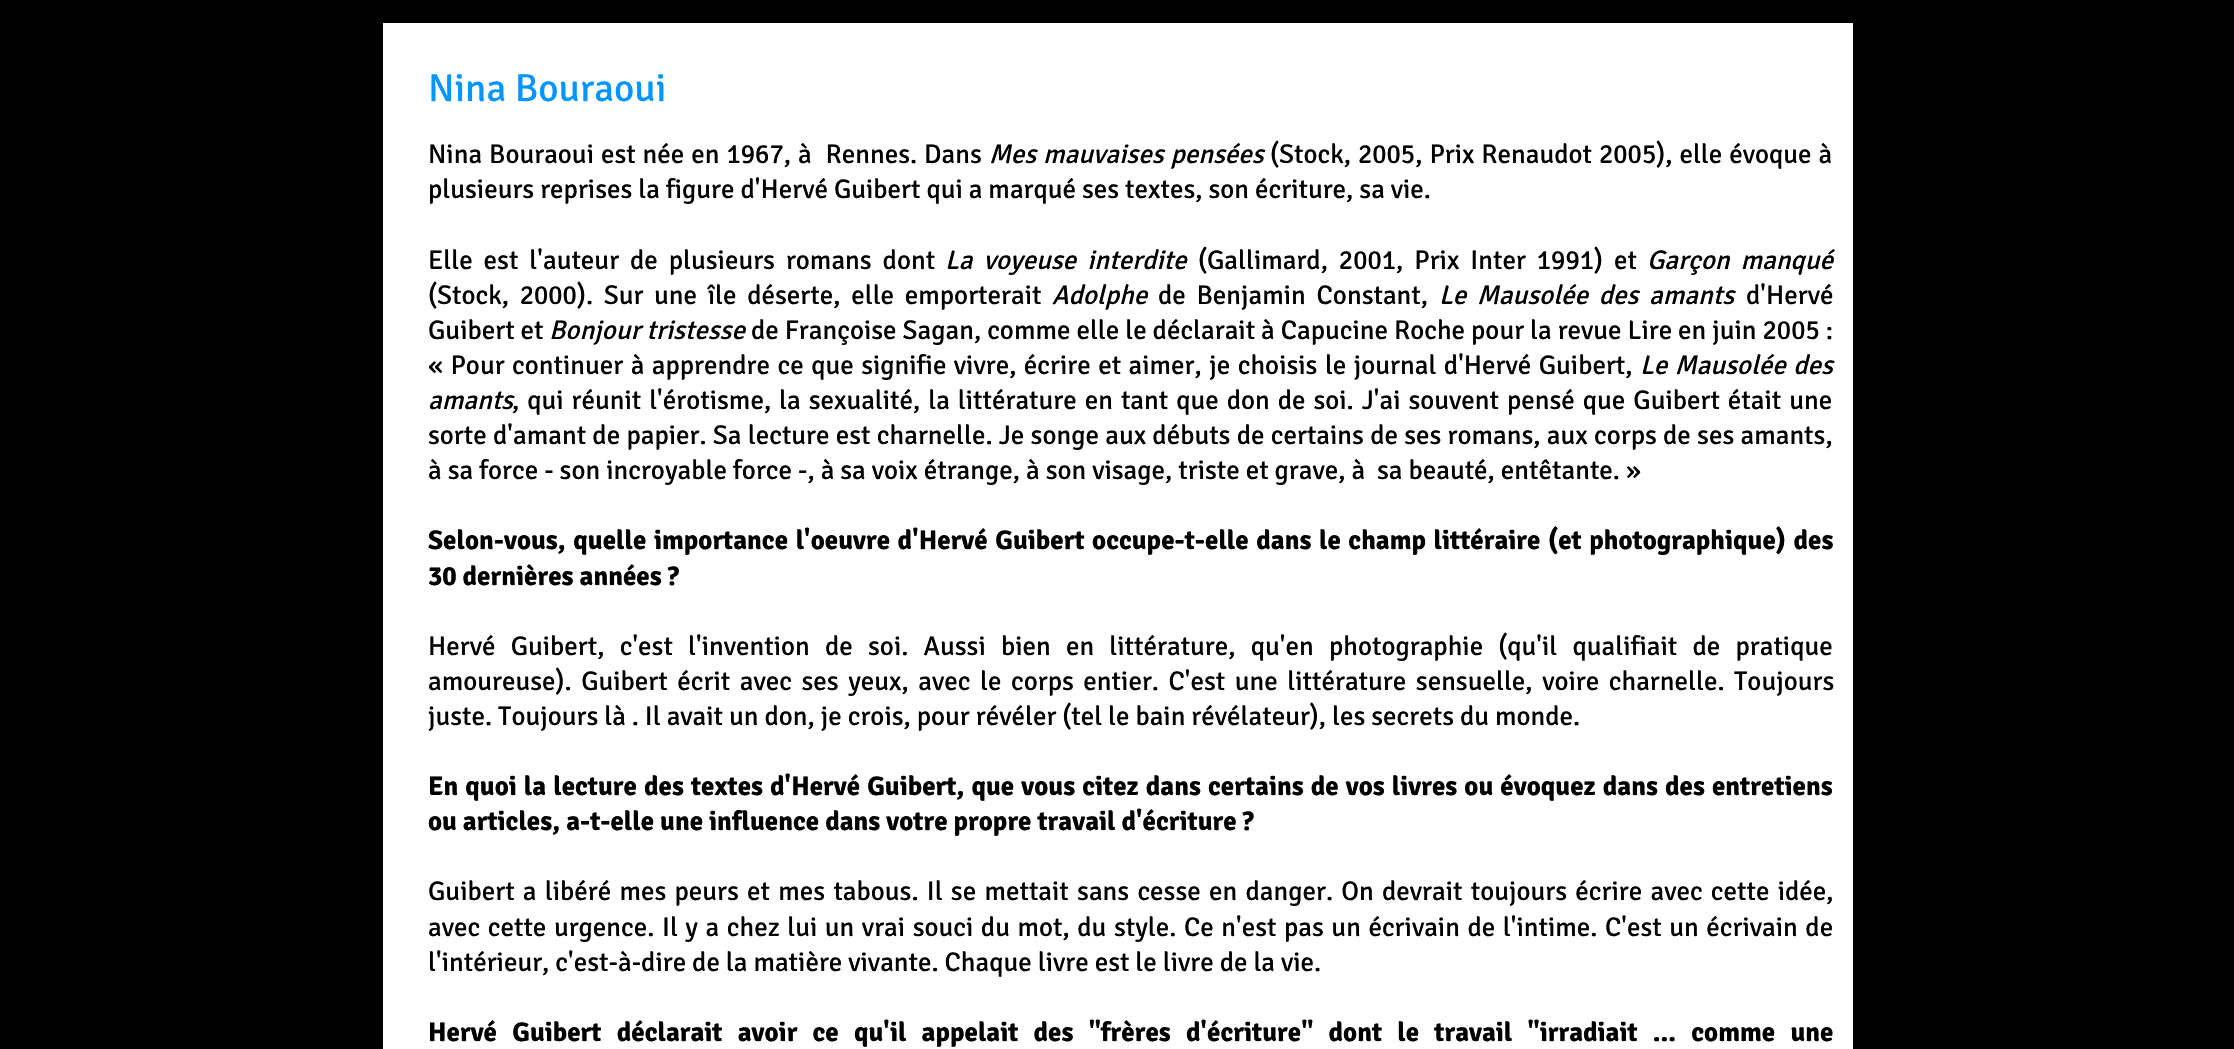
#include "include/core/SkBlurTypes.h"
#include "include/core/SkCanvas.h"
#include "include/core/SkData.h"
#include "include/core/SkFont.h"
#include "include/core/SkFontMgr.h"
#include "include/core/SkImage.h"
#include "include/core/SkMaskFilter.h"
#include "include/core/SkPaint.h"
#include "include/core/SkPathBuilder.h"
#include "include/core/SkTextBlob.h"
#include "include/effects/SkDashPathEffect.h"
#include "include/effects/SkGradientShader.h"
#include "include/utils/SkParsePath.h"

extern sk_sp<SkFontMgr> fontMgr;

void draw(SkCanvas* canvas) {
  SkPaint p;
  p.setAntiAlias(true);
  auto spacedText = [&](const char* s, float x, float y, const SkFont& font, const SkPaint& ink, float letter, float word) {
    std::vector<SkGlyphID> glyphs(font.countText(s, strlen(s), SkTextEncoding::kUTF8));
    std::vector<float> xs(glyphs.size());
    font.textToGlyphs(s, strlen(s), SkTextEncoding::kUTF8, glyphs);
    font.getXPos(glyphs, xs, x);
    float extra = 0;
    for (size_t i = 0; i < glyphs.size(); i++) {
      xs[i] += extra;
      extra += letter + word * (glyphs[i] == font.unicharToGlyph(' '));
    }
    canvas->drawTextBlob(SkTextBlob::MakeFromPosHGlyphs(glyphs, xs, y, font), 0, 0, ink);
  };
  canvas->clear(SK_ColorBLACK);
  p.setColor(SK_ColorWHITE);
  canvas->drawRect(SkRect::MakeLTRB(383, 23, 1853, 1049), p);
  SkFont font1(fontMgr->matchFamilyStyle("Signika", SkFontStyle::Normal()), 39);
  font1.setSubpixel(true);
  p.setColor(SkColorSetRGB(0, 149, 255));
  canvas->drawString("Nina Bouraoui", 428, 101, font1, p);
  SkFont font2(fontMgr->matchFamilyStyle("Signika", SkFontStyle::Normal()), 27);
  font2.setSubpixel(true);
  p.setColor(SK_ColorBLACK);
  spacedText("Nina Bouraoui est née en 1967, à  Rennes. Dans", 428, 163, font2, p, 0, 1);
  SkFont font3(fontMgr->matchFamilyStyle("Signika", SkFontStyle::Italic()), 27);
  font3.setSubpixel(true);
  spacedText("Mes mauvaises pensées", 989, 163, font3, p, 0, 1);
  spacedText("(Stock, 2005, Prix Renaudot 2005), elle évoque à", 1270, 163, font2, p, 0, 1);
  canvas->drawString("plusieurs reprises la figure d'Hervé Guibert qui a marqué ses textes, son écriture, sa vie.", 428, 198, font2, p);
  spacedText("Elle est l'auteur de plusieurs romans dont", 428, 269, font2, p, 0, 5);
  spacedText("La voyeuse interdite", 945, 269, font3, p, 0, 5);
  spacedText("(Gallimard, 2001, Prix Inter 1991) et", 1198, 269, font2, p, 0, 5);
  spacedText("Garçon manqué", 1647, 269, font3, p, 0, 5);
  spacedText("(Stock, 2000). Sur une île déserte, elle emporterait", 428, 304, font2, p, 0, 4.75f);
  canvas->drawString("Adolphe", 1052, 304, font3, p);
  spacedText("de Benjamin Constant,", 1158, 304, font2, p, 0, 4.75f);
  spacedText("Le Mausolée des amants", 1439, 304, font3, p, 0, 4.75f);
  canvas->drawString("d'Hervé", 1746, 304, font2, p);
  canvas->drawString("Guibert et", 428, 339, font2, p);
  canvas->drawString("Bonjour tristesse", 549, 339, font3, p);
  canvas->drawString("de Françoise Sagan, comme elle le déclarait à Capucine Roche pour la revue Lire en juin 2005 :", 751, 339, font2, p);
  spacedText("« Pour continuer à apprendre ce que signifie vivre, écrire et aimer, je choisis le journal d'Hervé Guibert,", 428, 374, font2, p, 0, 1.5f);
  spacedText("Le Mausolée des", 1640, 374, font3, p, 0, 1.5f);
  canvas->drawString("amants", 428, 409, font3, p);
  spacedText(", qui réunit l'érotisme, la sexualité, la littérature en tant que don de soi. J'ai souvent pensé que Guibert était une", 512, 409, font2, p, 0, 2);
  spacedText("sorte d'amant de papier. Sa lecture est charnelle. Je songe aux débuts de certains de ses romans, aux corps de ses amants,", 428, 444, font2, p, 0, 0.3f);
  canvas->drawString("à sa force - son incroyable force -, à sa voix étrange, à son visage, triste et grave, à  sa beauté, entêtante. »", 428, 479, font2, p);
  SkFont font4(fontMgr->matchFamilyStyle("Signika", SkFontStyle::Bold()), 27);
  font4.setSubpixel(true);
  spacedText("Selon-vous, quelle importance l'oeuvre d'Hervé Guibert occupe-t-elle dans le champ littéraire (et photographique) des", 428, 549, font4, p, 0, 1.6f);
  canvas->drawString("30 dernières années ?", 428, 585, font4, p);
  spacedText("Hervé Guibert, c'est l'invention de soi. Aussi bien en littérature, qu'en photographie (qu'il qualifiait de pratique", 428, 655, font2, p, 0, 9.25f);
  spacedText("amoureuse). Guibert écrit avec ses yeux, avec le corps entier. C'est une littérature sensuelle, voire charnelle. Toujours", 428, 690, font2, p, 0, 3.6f);
  canvas->drawString("juste. Toujours là . Il avait un don, je crois, pour révéler (tel le bain révélateur), les secrets du monde.", 428, 725, font2, p);
  spacedText("En quoi la lecture des textes d'Hervé Guibert, que vous citez dans certains de vos livres ou évoquez dans des entretiens", 428, 795, font4, p, 0, 1.1f);
  canvas->drawString("ou articles, a-t-elle une influence dans votre propre travail d'écriture ?", 428, 830, font4, p);
  spacedText("Guibert a libéré mes peurs et mes tabous. Il se mettait sans cesse en danger. On devrait toujours écrire avec cette idée,", 428, 900, font2, p, 0, 2.3f);
  spacedText("avec cette urgence. Il y a chez lui un vrai souci du mot, du style. Ce n'est pas un écrivain de l'intime. C'est un écrivain de", 428, 936, font2, p, 0, 1.6f);
  canvas->drawString("l'intérieur, c'est-à-dire de la matière vivante. Chaque livre est le livre de la vie.", 428, 971, font2, p);
  spacedText("Hervé Guibert déclarait avoir ce qu'il appelait des \"frères d'écriture\" dont le travail \"irradiait ... comme une", 428, 1041, font4, p, 0, 9.25f);
}
